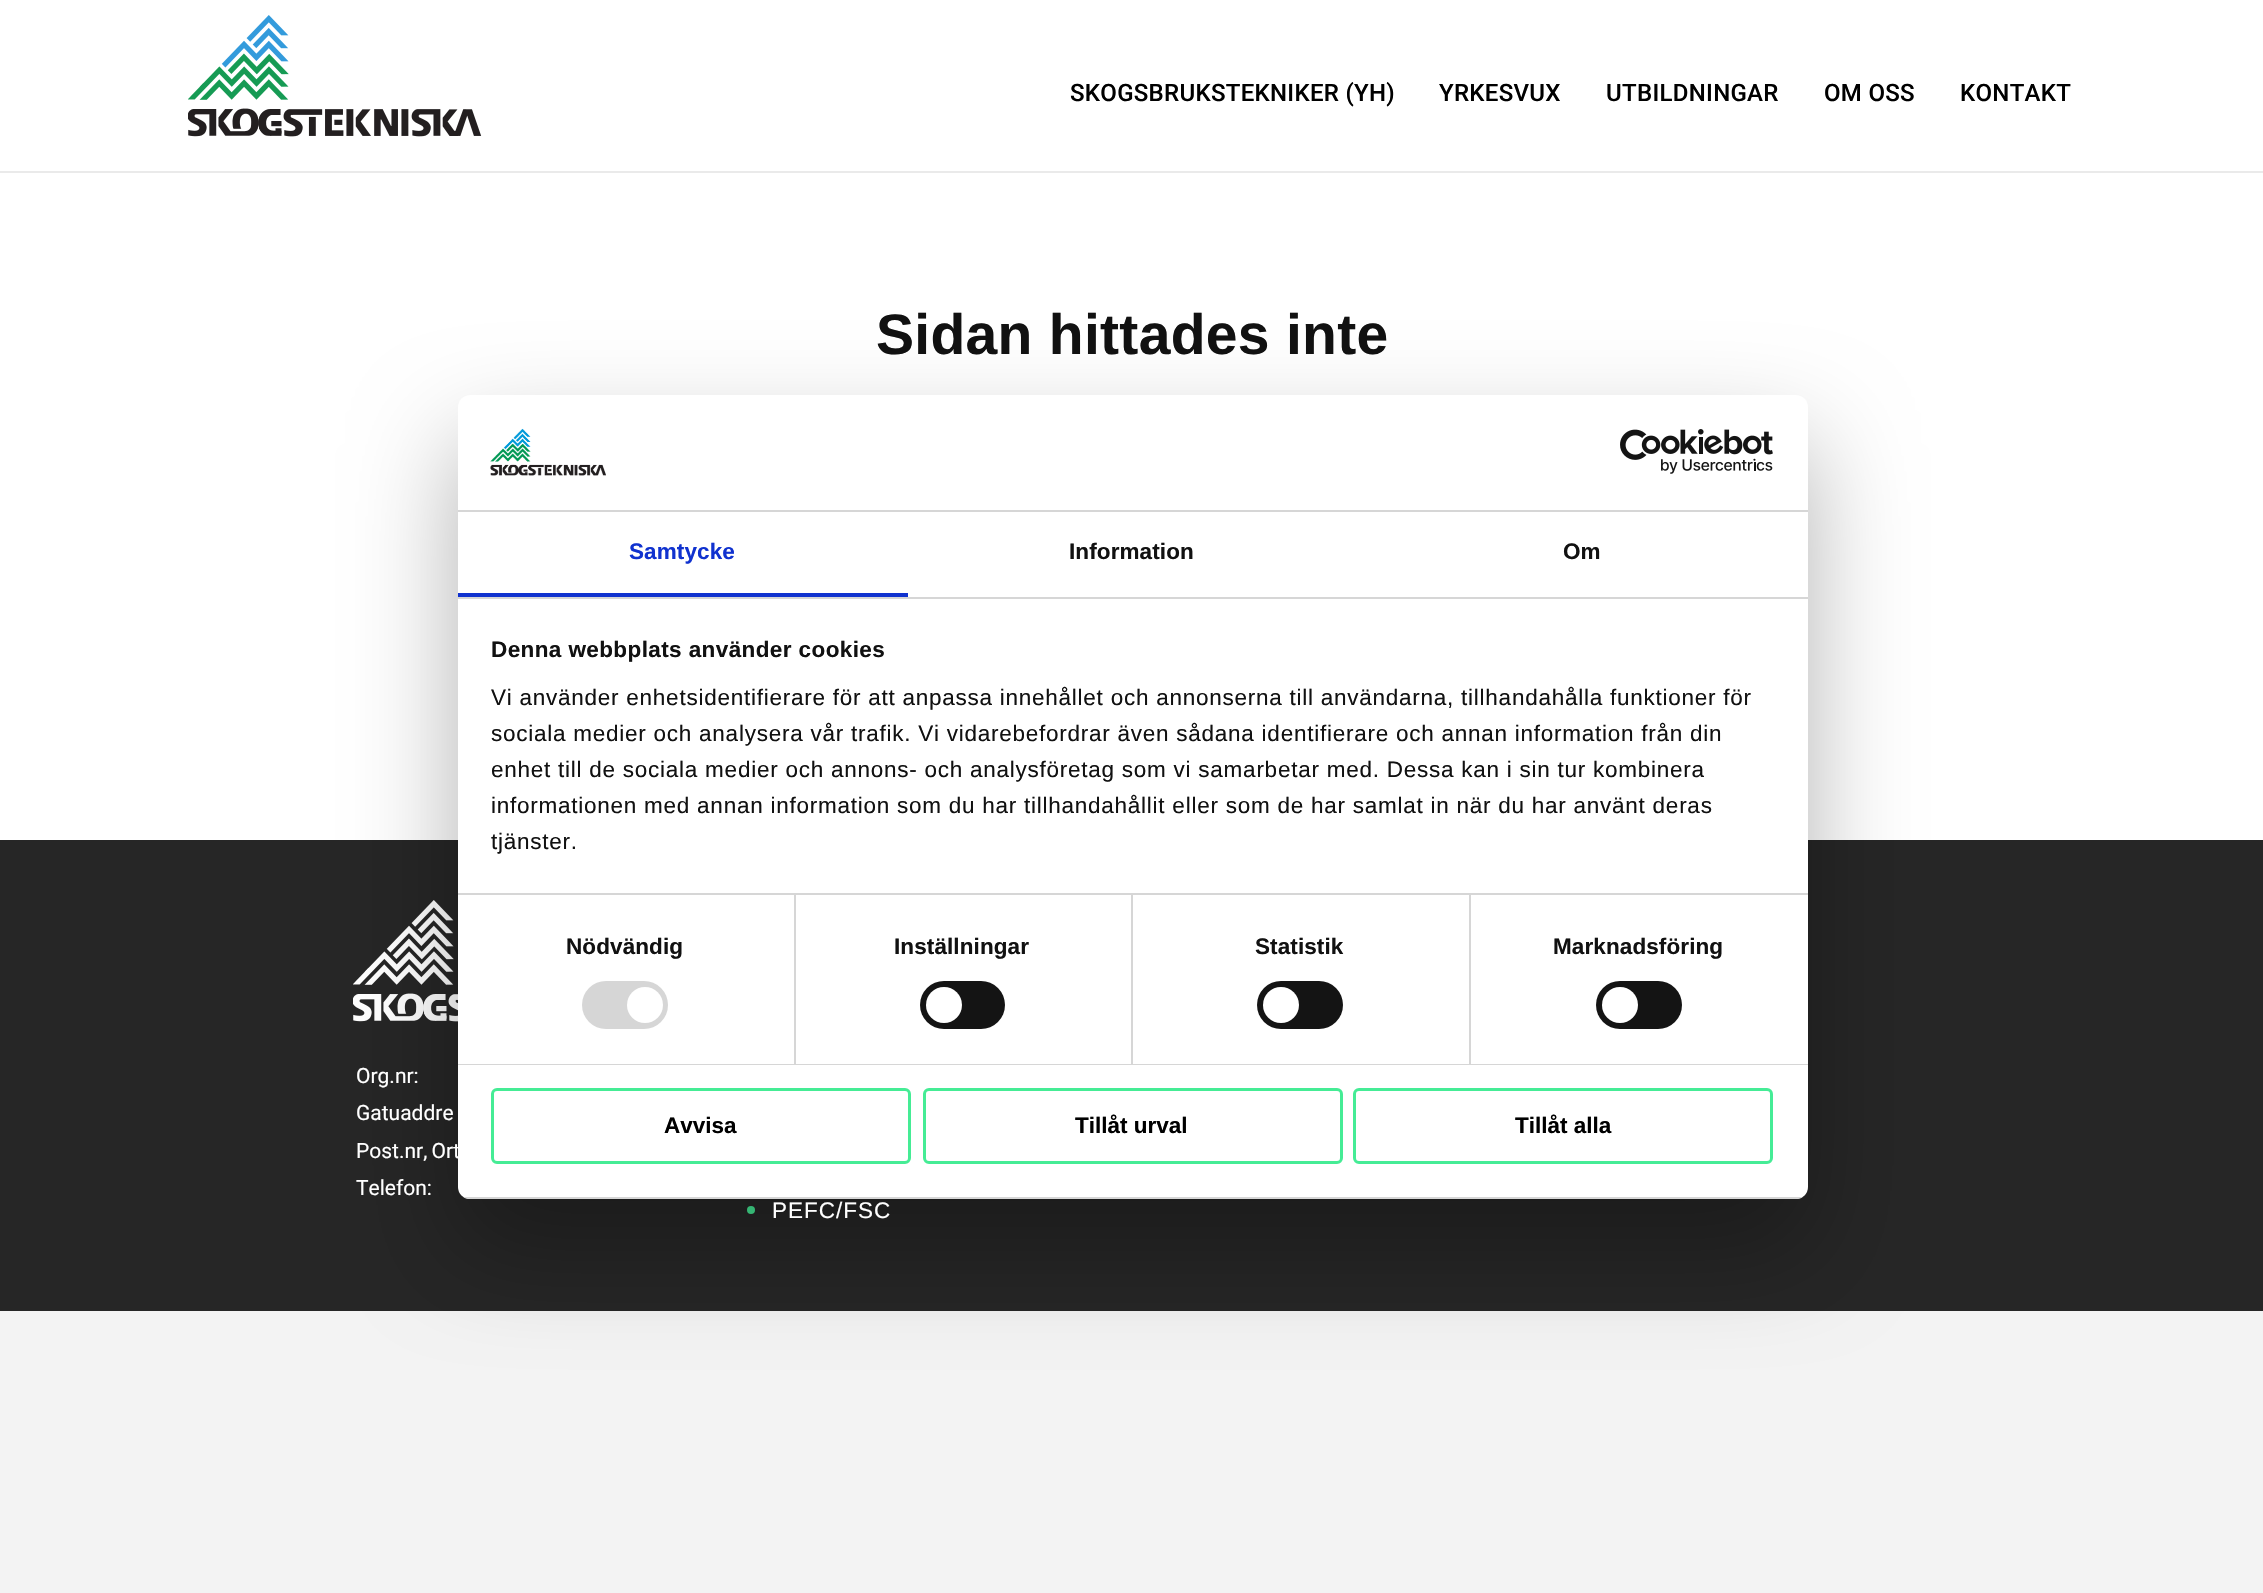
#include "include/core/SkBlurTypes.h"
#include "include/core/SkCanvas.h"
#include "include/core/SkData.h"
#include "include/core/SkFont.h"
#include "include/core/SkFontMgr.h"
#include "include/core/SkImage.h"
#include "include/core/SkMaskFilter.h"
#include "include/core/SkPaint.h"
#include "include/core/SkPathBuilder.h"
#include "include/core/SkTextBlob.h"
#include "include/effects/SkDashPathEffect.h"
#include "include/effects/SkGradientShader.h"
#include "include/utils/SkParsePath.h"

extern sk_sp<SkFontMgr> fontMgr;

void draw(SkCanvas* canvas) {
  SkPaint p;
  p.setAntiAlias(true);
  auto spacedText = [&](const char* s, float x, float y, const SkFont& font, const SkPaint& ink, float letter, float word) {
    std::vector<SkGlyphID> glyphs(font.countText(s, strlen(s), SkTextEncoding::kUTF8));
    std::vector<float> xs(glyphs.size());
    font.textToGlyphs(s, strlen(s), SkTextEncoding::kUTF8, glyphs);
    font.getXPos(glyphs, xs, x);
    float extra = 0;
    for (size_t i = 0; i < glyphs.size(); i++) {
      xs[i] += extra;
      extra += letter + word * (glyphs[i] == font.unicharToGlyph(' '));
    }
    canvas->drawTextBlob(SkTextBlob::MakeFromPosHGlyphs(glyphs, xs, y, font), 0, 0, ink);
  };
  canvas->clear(SkColorSetRGB(243, 243, 243));
  p.setColor(SK_ColorWHITE);
  canvas->drawRect(SkRect::MakeLTRB(0, 0, 2263, 171), p);
  p.setColor(SkColorSetRGB(234, 234, 234));
  canvas->drawRect(SkRect::MakeLTRB(0, 171, 2263, 173), p);
  canvas->drawImageRect(SkImages::DeferredFromEncodedData(SkData::MakeFromFileName("images/1.png")), SkRect::MakeLTRB(188, 15, 482, 137), SkSamplingOptions());
  p.setColor(SK_ColorWHITE);
  canvas->drawRect(SkRect::MakeLTRB(0, 173, 2263, 840), p);
  p.setColor(SkColorSetRGB(38, 38, 38));
  canvas->drawRect(SkRect::MakeLTRB(0, 840, 2263, 1311), p);
  canvas->drawImageRect(SkImages::DeferredFromEncodedData(SkData::MakeFromFileName("images/4.png")), SkRect::MakeLTRB(353, 900, 458, 1022), SkSamplingOptions());
  p.setColor(SkColorSetRGB(69, 236, 150));
  canvas->drawCircle(751, 1210, 4, p);
  p.setColor(SkColorSetARGB(77, 0, 0, 0));
  p.setMaskFilter(SkMaskFilter::MakeBlur(kNormal_SkBlurStyle, 51));
  canvas->drawRoundRect(SkRect::MakeLTRB(458, 443, 1808, 1247), 12, 12, p);
  p.setMaskFilter(nullptr);
  p.setColor(SK_ColorWHITE);
  canvas->drawRoundRect(SkRect::MakeLTRB(458, 395, 1808, 1199), 12, 12, p);
  p.setColor(SkColorSetRGB(214, 214, 214));
  canvas->drawRect(SkRect::MakeLTRB(458, 510, 1808, 512), p);
  canvas->drawImageRect(SkImages::DeferredFromEncodedData(SkData::MakeFromFileName("images/2.png")), SkRect::MakeLTRB(490, 428, 606, 476), SkSamplingOptions());
  canvas->drawImageRect(SkImages::DeferredFromEncodedData(SkData::MakeFromFileName("images/3.png")), SkRect::MakeLTRB(1620, 429, 1773, 474), SkSamplingOptions());
  canvas->drawRect(SkRect::MakeLTRB(458, 597, 1808, 599), p);
  p.setColor(SkColorSetRGB(16, 50, 207));
  canvas->drawRect(SkRect::MakeLTRB(458, 593, 908, 597), p);
  p.setColor(SkColorSetRGB(214, 214, 214));
  canvas->drawRect(SkRect::MakeLTRB(794, 894, 796, 1064), p);
  canvas->drawRect(SkRect::MakeLTRB(1131, 894, 1133, 1064), p);
  canvas->drawRect(SkRect::MakeLTRB(1469, 894, 1471, 1064), p);
  canvas->drawRect(SkRect::MakeLTRB(458, 893, 1808, 895), p);
  canvas->drawRect(SkRect::MakeLTRB(458, 1064, 1808, 1065), p);
  canvas->drawRoundRect(SkRect::MakeLTRB(582, 981, 668, 1029), 24, 24, p);
  p.setColor(SK_ColorWHITE);
  canvas->drawCircle(645, 1005, 18, p);
  p.setColor(SkColorSetRGB(20, 20, 20));
  canvas->drawRoundRect(SkRect::MakeLTRB(920, 981, 1005, 1029), 24, 24, p);
  p.setColor(SK_ColorWHITE);
  canvas->drawCircle(944, 1005, 18, p);
  p.setColor(SkColorSetRGB(20, 20, 20));
  canvas->drawRoundRect(SkRect::MakeLTRB(1257, 981, 1343, 1029), 24, 24, p);
  p.setColor(SK_ColorWHITE);
  canvas->drawCircle(1281, 1005, 18, p);
  p.setColor(SkColorSetRGB(20, 20, 20));
  canvas->drawRoundRect(SkRect::MakeLTRB(1596, 981, 1682, 1029), 24, 24, p);
  p.setColor(SK_ColorWHITE);
  canvas->drawCircle(1620, 1005, 18, p);
  canvas->save();
  canvas->clipPath(SkPathBuilder().moveTo(470, 395).lineTo(1796, 395).cubicTo(1802.5f, 395, 1808, 400.5f, 1808, 407).lineTo(1808, 1187).cubicTo(1808, 1193.5f, 1802.5f, 1199, 1796, 1199).lineTo(470, 1199).cubicTo(463.5f, 1199, 458, 1193.5f, 458, 1187).lineTo(458, 407).cubicTo(458, 400.5f, 463.5f, 395, 470, 395).close().detach(), true);
  p.setColor(SkColorSetRGB(214, 214, 214));
  canvas->drawRect(SkRect::MakeLTRB(458, 1197, 1808, 1199), p);
  canvas->restore();
  p.setStyle(SkPaint::kStroke_Style);
  p.setStrokeWidth(3);
  p.setColor(SkColorSetRGB(69, 236, 149));
  canvas->drawRoundRect(SkRect::MakeLTRB(492.5f, 1089.5f, 909.5f, 1162.5f), 4.5f, 4.5f, p);
  canvas->drawRoundRect(SkRect::MakeLTRB(924.5f, 1089.5f, 1341.5f, 1162.5f), 4.5f, 4.5f, p);
  p.setColor(SkColorSetRGB(69, 236, 150));
  canvas->drawRoundRect(SkRect::MakeLTRB(1354.5f, 1089.5f, 1771.5f, 1162.5f), 4.5f, 4.5f, p);
  SkFont font1(fontMgr->matchFamilyStyle("Roboto", SkFontStyle(500, SkFontStyle::kNormal_Width, SkFontStyle::kUpright_Slant)), 24);
  font1.setSubpixel(true);
  p.setStyle(SkPaint::kFill_Style);
  p.setColor(SK_ColorBLACK);
  spacedText("SKOGSBRUKSTEKNIKER (YH)", 1070, 101, font1, p, 0.3f, 0);
  spacedText("YRKESVUX", 1439, 101, font1, p, 0.3f, 0);
  spacedText("UTBILDNINGAR", 1606, 101, font1, p, 0.3f, 0);
  spacedText("OM OSS", 1824, 101, font1, p, 0.3f, 0);
  spacedText("KONTAKT", 1960, 101, font1, p, 0.3f, 0);
  SkFont font2(fontMgr->matchFamilyStyle("Liberation Sans", SkFontStyle::Bold()), 57);
  font2.setSubpixel(true);
  p.setColor(SkColorSetRGB(17, 17, 17));
  spacedText("Sidan hittades inte", 876, 354, font2, p, 0.3f, 0);
  SkFont font3(fontMgr->matchFamilyStyle("Liberation Sans", SkFontStyle::Bold()), 22.5f);
  font3.setSubpixel(true);
  p.setColor(SkColorSetRGB(16, 50, 207));
  spacedText("Samtycke", 629, 559, font3, p, 0.1f, 0);
  p.setColor(SkColorSetRGB(17, 17, 17));
  spacedText("Information", 1069, 559, font3, p, 0.1f, 0);
  spacedText("Om", 1563, 559, font3, p, 0.1f, 0);
  spacedText("Denna webbplats använder cookies", 491, 657, font3, p, 0.4f, 0);
  SkFont font4(fontMgr->matchFamilyStyle("Liberation Sans", SkFontStyle::Normal()), 22.5f);
  font4.setSubpixel(true);
  spacedText("Vi använder enhetsidentifierare för att anpassa innehållet och annonserna till användarna, tillhandahålla funktioner för", 491, 705, font4, p, 0.75f, 0);
  spacedText("sociala medier och analysera vår trafik. Vi vidarebefordrar även sådana identifierare och annan information från din", 491, 741, font4, p, 0.75f, 0);
  spacedText("enhet till de sociala medier och annons- och analysföretag som vi samarbetar med. Dessa kan i sin tur kombinera", 491, 777, font4, p, 0.75f, 0);
  spacedText("informationen med annan information som du har tillhandahållit eller som de har samlat in när du har använt deras", 491, 813, font4, p, 0.75f, 0);
  spacedText("tjänster.", 491, 849, font4, p, 0.75f, 0);
  spacedText("Nödvändig", 566, 954, font3, p, 0.1f, 0);
  spacedText("Inställningar", 894, 954, font3, p, 0.1f, 0);
  spacedText("Statistik", 1255, 954, font3, p, 0.1f, 0);
  spacedText("Marknadsföring", 1553, 954, font3, p, 0.1f, 0);
  p.setColor(SK_ColorBLACK);
  canvas->drawString("Avvisa", 664, 1133, font3, p);
  canvas->drawString("Tillåt urval", 1075, 1133, font3, p);
  canvas->drawString("Tillåt alla", 1515, 1133, font3, p);
  SkFont font5(fontMgr->matchFamilyStyle("Roboto", SkFontStyle::Normal()), 21);
  font5.setSubpixel(true);
  p.setColor(SK_ColorWHITE);
  canvas->drawString("Org.nr:", 356, 1083, font5, p);
  canvas->drawString("Gatuaddre", 356, 1120, font5, p);
  spacedText("Post.nr, Ort", 356, 1158, font5, p, 0, -1);
  canvas->drawString("Telefon:", 356, 1195, font5, p);
  spacedText("PEFC/FSC", 772, 1218, font4, p, 1, 0);
}
